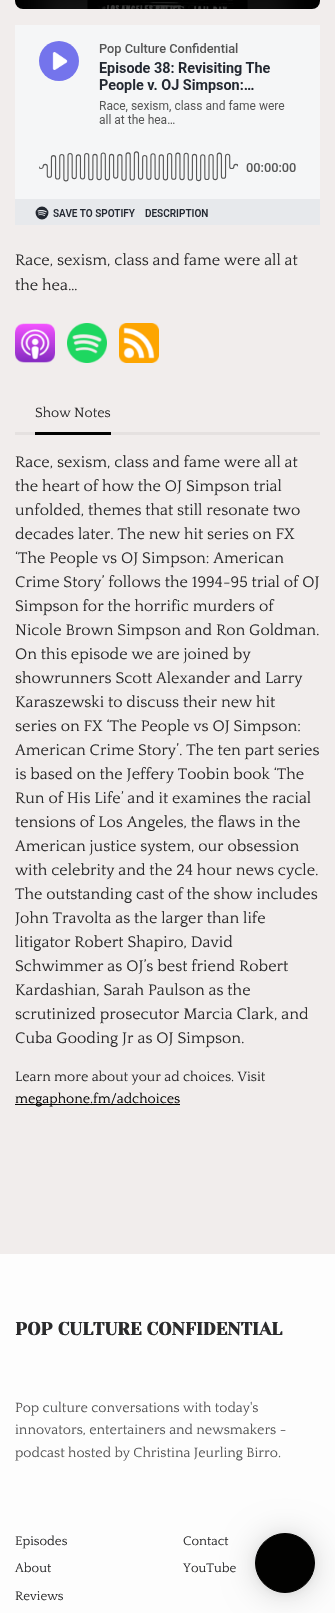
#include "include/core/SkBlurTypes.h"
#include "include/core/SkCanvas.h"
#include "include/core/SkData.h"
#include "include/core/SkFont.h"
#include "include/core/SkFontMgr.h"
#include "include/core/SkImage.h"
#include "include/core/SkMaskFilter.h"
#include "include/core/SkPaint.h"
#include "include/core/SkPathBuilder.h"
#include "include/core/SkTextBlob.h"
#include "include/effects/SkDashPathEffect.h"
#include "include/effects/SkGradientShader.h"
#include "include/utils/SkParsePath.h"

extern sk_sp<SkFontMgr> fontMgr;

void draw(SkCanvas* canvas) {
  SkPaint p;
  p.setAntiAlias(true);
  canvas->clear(SkColorSetRGB(253, 253, 253));
  p.setColor(SkColorSetRGB(241, 237, 236));
  canvas->drawRect(SkRect::MakeLTRB(0, 0, 335, 1254), p);
  canvas->drawImageRect(SkImages::DeferredFromEncodedData(SkData::MakeFromFileName("images/1.png")), SkRect::MakeLTRB(15, 0, 320, 9), SkSamplingOptions());
  canvas->drawImageRect(SkImages::DeferredFromEncodedData(SkData::MakeFromFileName("images/2.png")), SkRect::MakeLTRB(15, 25, 320, 225), SkSamplingOptions());
  canvas->drawImageRect(SkImages::DeferredFromEncodedData(SkData::MakeFromFileName("images/3.png")), SkRect::MakeLTRB(15, 323, 55, 363), SkSamplingOptions());
  canvas->drawImageRect(SkImages::DeferredFromEncodedData(SkData::MakeFromFileName("images/4.png")), SkRect::MakeLTRB(67, 323, 107, 363), SkSamplingOptions());
  canvas->drawImageRect(SkImages::DeferredFromEncodedData(SkData::MakeFromFileName("images/5.png")), SkRect::MakeLTRB(119, 323, 159, 363), SkSamplingOptions());
  p.setColor(SkColorSetRGB(229, 225, 224));
  canvas->drawRect(SkRect::MakeLTRB(15, 432, 320, 435), p);
  p.setColor(SkColorSetRGB(2, 2, 1));
  canvas->drawRect(SkRect::MakeLTRB(35, 432, 111, 435), p);
  canvas->drawRect(SkRect::MakeLTRB(15, 1104, 180, 1105), p);
  p.setColor(SkColorSetARGB(41, 0, 0, 0));
  p.setMaskFilter(SkMaskFilter::MakeBlur(kNormal_SkBlurStyle, 16));
  canvas->drawRoundRect(SkRect::MakeLTRB(255, 1535, 315, 1595), 30, 30, p);
  p.setMaskFilter(nullptr);
  p.setColor(SkColorSetARGB(15, 0, 0, 0));
  p.setMaskFilter(SkMaskFilter::MakeBlur(kNormal_SkBlurStyle, 3));
  canvas->drawRoundRect(SkRect::MakeLTRB(255, 1534, 315, 1594), 30, 30, p);
  p.setMaskFilter(nullptr);
  p.setColor(SkColorSetRGB(2, 2, 1));
  canvas->drawCircle(285, 1563, 29.5f, p);
  p.setStyle(SkPaint::kStroke_Style);
  p.setStrokeWidth(1);
  canvas->drawCircle(285, 1563, 29.5f, p);
  SkFont font1(fontMgr->matchFamilyStyle("Quattrocento", SkFontStyle::Normal()), 16);
  font1.setSubpixel(true);
  p.setStyle(SkPaint::kFill_Style);
  p.setColor(SkColorSetRGB(43, 43, 44));
  canvas->drawString("Race, sexism, class and fame were all at", 15, 265, font1, p);
  canvas->drawString("the hea…", 15, 290, font1, p);
  SkFont font2(fontMgr->matchFamilyStyle("Quattrocento", SkFontStyle::Normal()), 14);
  font2.setSubpixel(true);
  canvas->drawString("Show Notes", 35, 417, font2, p);
  canvas->drawString("Race, sexism, class and fame were all at", 15, 467, font1, p);
  canvas->drawString("the heart of how the OJ Simpson trial", 15, 491, font1, p);
  canvas->drawString("unfolded, themes that still resonate two", 15, 515, font1, p);
  canvas->drawString("decades later. The new hit series on FX", 15, 539, font1, p);
  canvas->drawString("‘The People vs OJ Simpson: American", 15, 563, font1, p);
  canvas->drawString("Crime Story’ follows the 1994-95 trial of OJ", 15, 587, font1, p);
  canvas->drawString("Simpson for the horrific murders of", 15, 611, font1, p);
  canvas->drawString("Nicole Brown Simpson and Ron Goldman.", 15, 635, font1, p);
  canvas->drawString("On this episode we are joined by", 15, 659, font1, p);
  canvas->drawString("showrunners Scott Alexander and Larry", 15, 683, font1, p);
  canvas->drawString("Karaszewski to discuss their new hit", 15, 707, font1, p);
  canvas->drawString("series on FX ‘The People vs OJ Simpson:", 15, 731, font1, p);
  canvas->drawString("American Crime Story’. The ten part series", 15, 755, font1, p);
  canvas->drawString("is based on the Jeffery Toobin book ‘The", 15, 779, font1, p);
  canvas->drawString("Run of His Life’ and it examines the racial", 15, 803, font1, p);
  canvas->drawString("tensions of Los Angeles, the flaws in the", 15, 827, font1, p);
  canvas->drawString("American justice system, our obsession", 15, 851, font1, p);
  canvas->drawString("with celebrity and the 24 hour news cycle.", 15, 875, font1, p);
  canvas->drawString("The outstanding cast of the show includes", 15, 899, font1, p);
  canvas->drawString("John Travolta as the larger than life", 15, 923, font1, p);
  canvas->drawString("litigator Robert Shapiro, David", 15, 947, font1, p);
  canvas->drawString("Schwimmer as OJ’s best friend Robert", 15, 971, font1, p);
  canvas->drawString("Kardashian, Sarah Paulson as the", 15, 995, font1, p);
  canvas->drawString("scrutinized prosecutor Marcia Clark, and", 15, 1019, font1, p);
  canvas->drawString("Cuba Gooding Jr as OJ Simpson.", 15, 1043, font1, p);
  canvas->drawString("Learn more about your ad choices. Visit", 15, 1081, font2, p);
  p.setColor(SkColorSetRGB(2, 2, 1));
  canvas->drawString("megaphone.fm/adchoices", 15, 1103, font2, p);
  SkFont font3(fontMgr->matchFamilyStyle("Yeseva One", SkFontStyle::Bold()), 18);
  font3.setSubpixel(true);
  p.setColor(SkColorSetRGB(43, 43, 44));
  canvas->drawString("POP CULTURE CONFIDENTIAL", 15, 1335, font3, p);
  p.setColor(SkColorSetRGB(85, 85, 86));
  canvas->drawString("Pop culture conversations with today's", 15, 1412, font2, p);
  canvas->drawString("innovators, entertainers and newsmakers -", 15, 1434, font2, p);
  canvas->drawString("podcast hosted by Christina Jeurling Birro.", 15, 1457, font2, p);
  SkFont font4(fontMgr->matchFamilyStyle("Quattrocento", SkFontStyle::Normal()), 13);
  font4.setSubpixel(true);
  p.setColor(SkColorSetRGB(43, 43, 44));
  canvas->drawString("Episodes", 15, 1545, font4, p);
  canvas->drawString("About", 15, 1572, font4, p);
  canvas->drawString("Reviews", 15, 1600, font4, p);
  canvas->drawString("Contact", 183, 1545, font4, p);
  canvas->drawString("YouTube", 183, 1572, font4, p);
}
